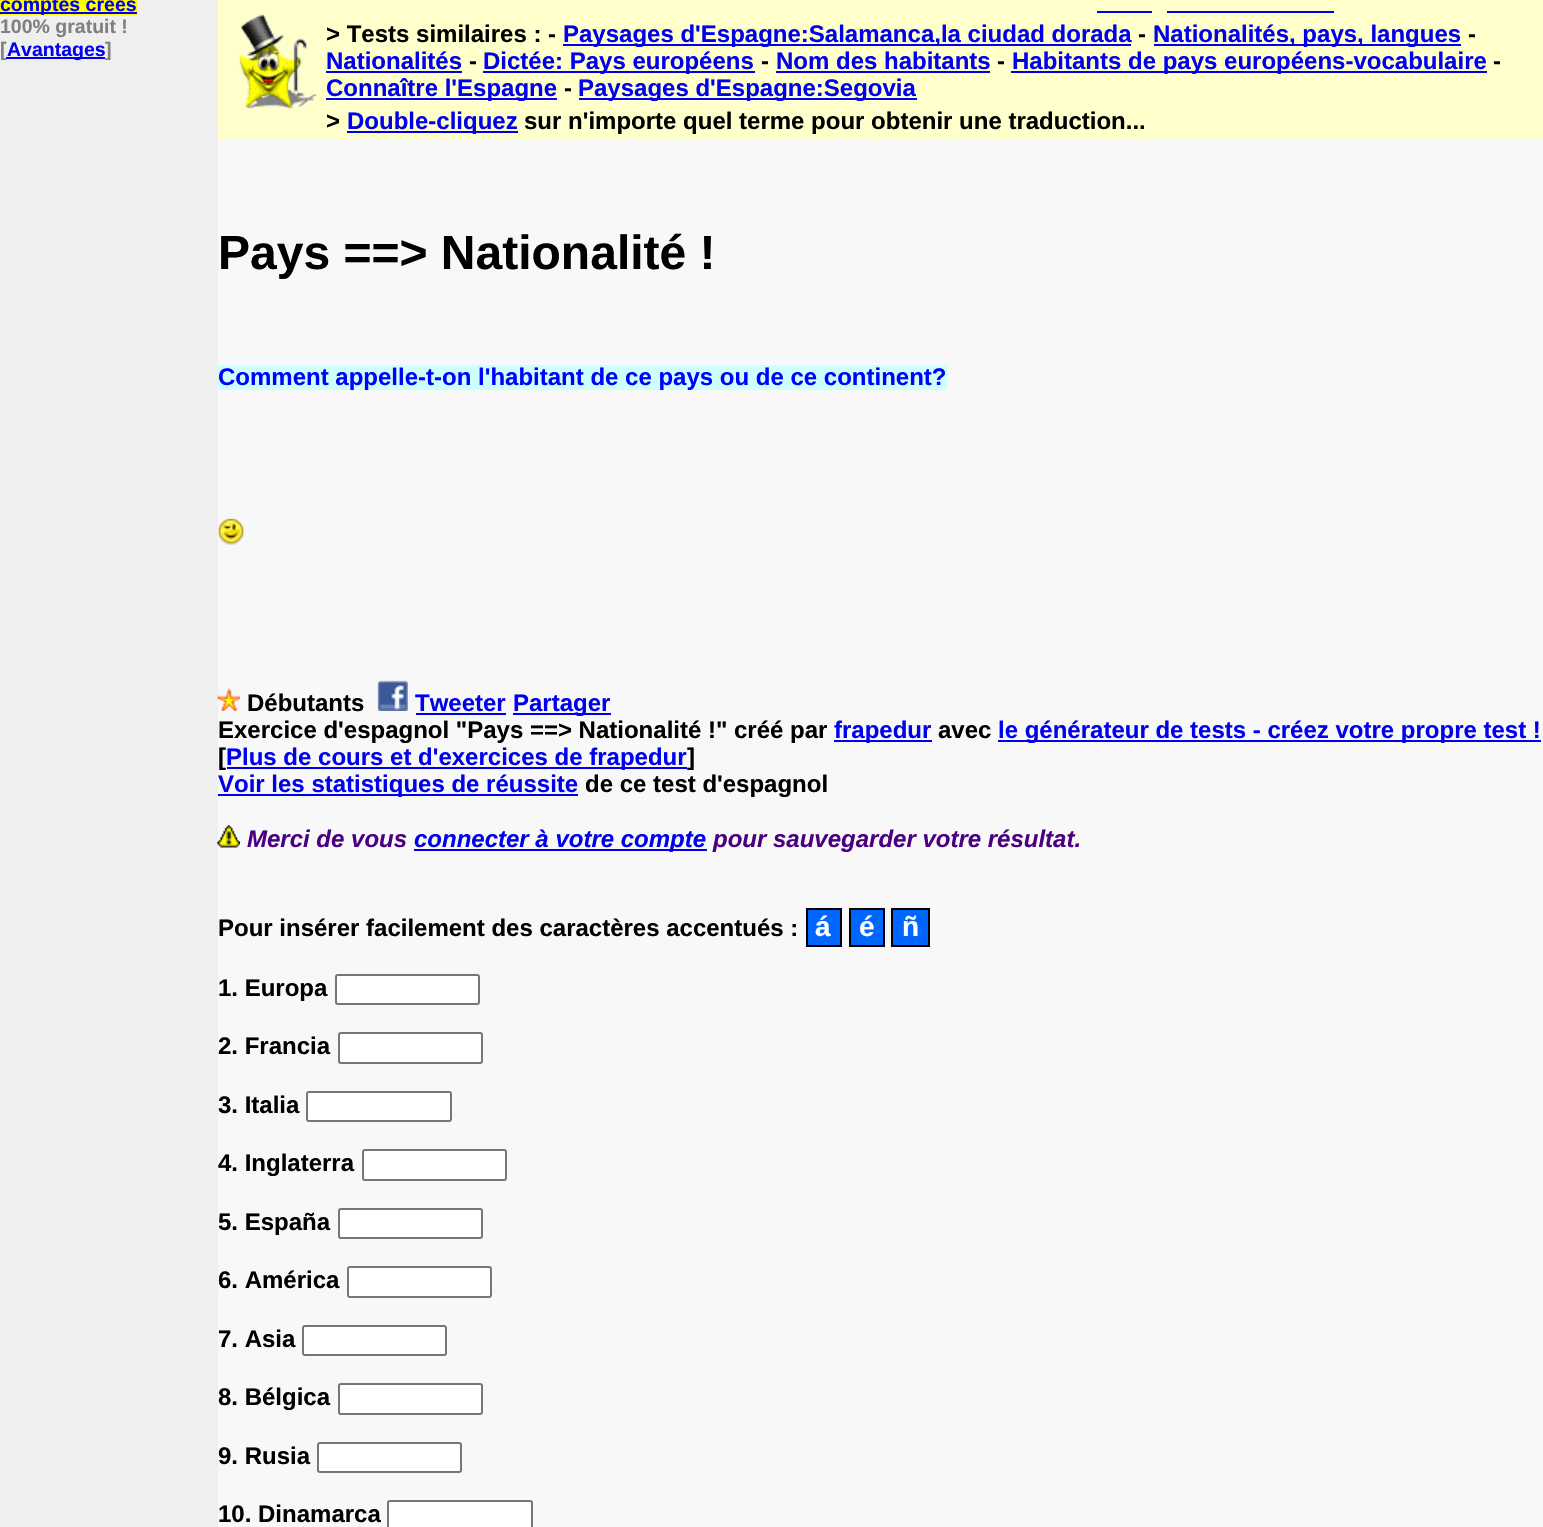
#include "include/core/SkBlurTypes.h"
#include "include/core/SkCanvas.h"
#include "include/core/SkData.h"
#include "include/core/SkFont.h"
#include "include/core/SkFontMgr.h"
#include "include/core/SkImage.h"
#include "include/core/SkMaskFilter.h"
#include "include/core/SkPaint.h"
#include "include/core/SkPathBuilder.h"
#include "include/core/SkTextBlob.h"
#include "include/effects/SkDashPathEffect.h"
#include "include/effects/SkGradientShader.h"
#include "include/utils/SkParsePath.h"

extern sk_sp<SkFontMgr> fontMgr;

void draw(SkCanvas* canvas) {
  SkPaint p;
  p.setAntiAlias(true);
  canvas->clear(SkColorSetRGB(239, 239, 239));
  p.setColor(SkColorSetRGB(255, 255, 0));
  canvas->drawRect(SkRect::MakeLTRB(0, 0, 137, 15), p);
  p.setColor(SkColorSetRGB(0, 0, 238));
  canvas->drawRect(SkRect::MakeLTRB(0, 12, 137, 14), p);
  p.setColor(SkColorSetRGB(248, 248, 248));
  canvas->drawRect(SkRect::MakeLTRB(218, 140, 1543, 1527), p);
  p.setColor(SkColorSetRGB(255, 255, 204));
  canvas->drawRect(SkRect::MakeLTRB(218, 0, 1543, 140), p);
  p.setColor(SkColorSetRGB(0, 0, 238));
  canvas->drawRect(SkRect::MakeLTRB(1097, 11, 1152, 13), p);
  canvas->drawRect(SkRect::MakeLTRB(1167, 11, 1334, 13), p);
  canvas->drawImageRect(SkImages::DeferredFromEncodedData(SkData::MakeFromFileName("images/1.png")), SkRect::MakeLTRB(239, 14, 317, 109), SkSamplingOptions());
  canvas->drawRect(SkRect::MakeLTRB(563, 44, 1131, 46), p);
  canvas->drawRect(SkRect::MakeLTRB(1154, 44, 1461, 46), p);
  canvas->drawRect(SkRect::MakeLTRB(326, 71, 462, 73), p);
  canvas->drawRect(SkRect::MakeLTRB(483, 71, 755, 73), p);
  canvas->drawRect(SkRect::MakeLTRB(776, 71, 990, 73), p);
  canvas->drawRect(SkRect::MakeLTRB(1011, 71, 1487, 73), p);
  canvas->drawRect(SkRect::MakeLTRB(326, 98, 557, 100), p);
  canvas->drawRect(SkRect::MakeLTRB(579, 98, 917, 100), p);
  canvas->drawRect(SkRect::MakeLTRB(347, 131, 518, 133), p);
  p.setColor(SkColorSetRGB(204, 255, 255));
  canvas->drawRect(SkRect::MakeLTRB(218, 365, 947, 390), p);
  canvas->drawImageRect(SkImages::DeferredFromEncodedData(SkData::MakeFromFileName("images/2.png")), SkRect::MakeLTRB(217, 518, 245, 545), SkSamplingOptions());
  canvas->drawImageRect(SkImages::DeferredFromEncodedData(SkData::MakeFromFileName("images/3.png")), SkRect::MakeLTRB(217, 688, 240, 711), SkSamplingOptions());
  canvas->drawImageRect(SkImages::DeferredFromEncodedData(SkData::MakeFromFileName("images/4.png")), SkRect::MakeLTRB(377, 680, 408, 711), SkSamplingOptions());
  p.setColor(SkColorSetRGB(0, 0, 238));
  canvas->drawRect(SkRect::MakeLTRB(416, 713, 506, 715), p);
  canvas->drawRect(SkRect::MakeLTRB(513, 713, 611, 715), p);
  canvas->drawRect(SkRect::MakeLTRB(834, 740, 932, 742), p);
  canvas->drawRect(SkRect::MakeLTRB(998, 740, 1541, 742), p);
  canvas->drawRect(SkRect::MakeLTRB(227, 767, 687, 769), p);
  canvas->drawRect(SkRect::MakeLTRB(218, 794, 578, 796), p);
  canvas->drawImageRect(SkImages::DeferredFromEncodedData(SkData::MakeFromFileName("images/5.png")), SkRect::MakeLTRB(217, 825, 240, 848), SkSamplingOptions());
  canvas->drawRect(SkRect::MakeLTRB(414, 849, 707, 851), p);
  p.setColor(SkColorSetRGB(0, 102, 255));
  canvas->drawRect(SkRect::MakeLTRB(807, 909, 841, 946), p);
  p.setStyle(SkPaint::kStroke_Style);
  p.setStrokeWidth(2);
  p.setColor(SK_ColorBLACK);
  canvas->drawRect(SkRect::MakeLTRB(807, 909, 841, 946), p);
  p.setStyle(SkPaint::kFill_Style);
  p.setColor(SkColorSetRGB(0, 102, 255));
  canvas->drawRect(SkRect::MakeLTRB(850, 909, 884, 946), p);
  p.setStyle(SkPaint::kStroke_Style);
  p.setColor(SK_ColorBLACK);
  canvas->drawRect(SkRect::MakeLTRB(850, 909, 884, 946), p);
  p.setStyle(SkPaint::kFill_Style);
  p.setColor(SkColorSetRGB(0, 102, 255));
  canvas->drawRect(SkRect::MakeLTRB(892, 909, 929, 946), p);
  p.setStyle(SkPaint::kStroke_Style);
  p.setColor(SK_ColorBLACK);
  canvas->drawRect(SkRect::MakeLTRB(892, 909, 929, 946), p);
  p.setStyle(SkPaint::kFill_Style);
  p.setColor(SK_ColorWHITE);
  canvas->drawRoundRect(SkRect::MakeLTRB(336, 975, 479, 1004), 2, 2, p);
  p.setStyle(SkPaint::kStroke_Style);
  p.setColor(SkColorSetRGB(118, 118, 118));
  canvas->drawRoundRect(SkRect::MakeLTRB(336, 975, 479, 1004), 2, 2, p);
  p.setStyle(SkPaint::kFill_Style);
  p.setColor(SK_ColorWHITE);
  canvas->drawRoundRect(SkRect::MakeLTRB(339, 1033, 482, 1063), 2, 2, p);
  p.setStyle(SkPaint::kStroke_Style);
  p.setColor(SkColorSetRGB(118, 118, 118));
  canvas->drawRoundRect(SkRect::MakeLTRB(339, 1033, 482, 1063), 2, 2, p);
  p.setStyle(SkPaint::kFill_Style);
  p.setColor(SK_ColorWHITE);
  canvas->drawRoundRect(SkRect::MakeLTRB(307, 1092, 451, 1121), 2, 2, p);
  p.setStyle(SkPaint::kStroke_Style);
  p.setColor(SkColorSetRGB(118, 118, 118));
  canvas->drawRoundRect(SkRect::MakeLTRB(307, 1092, 451, 1121), 2, 2, p);
  p.setStyle(SkPaint::kFill_Style);
  p.setColor(SK_ColorWHITE);
  canvas->drawRoundRect(SkRect::MakeLTRB(363, 1150, 506, 1180), 2, 2, p);
  p.setStyle(SkPaint::kStroke_Style);
  p.setColor(SkColorSetRGB(118, 118, 118));
  canvas->drawRoundRect(SkRect::MakeLTRB(363, 1150, 506, 1180), 2, 2, p);
  p.setStyle(SkPaint::kFill_Style);
  p.setColor(SK_ColorWHITE);
  canvas->drawRoundRect(SkRect::MakeLTRB(339, 1209, 482, 1238), 2, 2, p);
  p.setStyle(SkPaint::kStroke_Style);
  p.setColor(SkColorSetRGB(118, 118, 118));
  canvas->drawRoundRect(SkRect::MakeLTRB(339, 1209, 482, 1238), 2, 2, p);
  p.setStyle(SkPaint::kFill_Style);
  p.setColor(SK_ColorWHITE);
  canvas->drawRoundRect(SkRect::MakeLTRB(348, 1267, 491, 1297), 2, 2, p);
  p.setStyle(SkPaint::kStroke_Style);
  p.setColor(SkColorSetRGB(118, 118, 118));
  canvas->drawRoundRect(SkRect::MakeLTRB(348, 1267, 491, 1297), 2, 2, p);
  p.setStyle(SkPaint::kFill_Style);
  p.setColor(SK_ColorWHITE);
  canvas->drawRoundRect(SkRect::MakeLTRB(303, 1326, 446, 1355), 2, 2, p);
  p.setStyle(SkPaint::kStroke_Style);
  p.setColor(SkColorSetRGB(118, 118, 118));
  canvas->drawRoundRect(SkRect::MakeLTRB(303, 1326, 446, 1355), 2, 2, p);
  p.setStyle(SkPaint::kFill_Style);
  p.setColor(SK_ColorWHITE);
  canvas->drawRoundRect(SkRect::MakeLTRB(339, 1384, 482, 1414), 2, 2, p);
  p.setStyle(SkPaint::kStroke_Style);
  p.setColor(SkColorSetRGB(118, 118, 118));
  canvas->drawRoundRect(SkRect::MakeLTRB(339, 1384, 482, 1414), 2, 2, p);
  p.setStyle(SkPaint::kFill_Style);
  p.setColor(SK_ColorWHITE);
  canvas->drawRoundRect(SkRect::MakeLTRB(318, 1443, 461, 1472), 2, 2, p);
  p.setStyle(SkPaint::kStroke_Style);
  p.setColor(SkColorSetRGB(118, 118, 118));
  canvas->drawRoundRect(SkRect::MakeLTRB(318, 1443, 461, 1472), 2, 2, p);
  p.setStyle(SkPaint::kFill_Style);
  p.setColor(SK_ColorWHITE);
  canvas->drawRoundRect(SkRect::MakeLTRB(388, 1501, 532, 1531), 2, 2, p);
  p.setStyle(SkPaint::kStroke_Style);
  p.setColor(SkColorSetRGB(118, 118, 118));
  canvas->drawRoundRect(SkRect::MakeLTRB(388, 1501, 532, 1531), 2, 2, p);
  SkFont font1(fontMgr->matchFamilyStyle("Liberation Sans", SkFontStyle::Bold()), 19.5f);
  font1.setSubpixel(true);
  p.setStyle(SkPaint::kFill_Style);
  p.setColor(SkColorSetRGB(0, 0, 238));
  canvas->drawString("comptes créés", 0, 11, font1, p);
  p.setColor(SkColorSetRGB(128, 128, 128));
  canvas->drawString("100% gratuit !", 0, 33, font1, p);
  canvas->drawString("[", 0, 56, font1, p);
  p.setColor(SkColorSetRGB(0, 0, 238));
  canvas->drawRect(SkRect::MakeLTRB(6, 57, 105, 59), p);
  canvas->drawString("Avantages", 7, 56, font1, p);
  p.setColor(SkColorSetRGB(128, 128, 128));
  canvas->drawString("]", 105, 56, font1, p);
  SkFont font2(fontMgr->matchFamilyStyle("Liberation Sans", SkFontStyle::Bold()), 24);
  font2.setSubpixel(true);
  p.setColor(SK_ColorBLACK);
  canvas->drawString("> Tests similaires : -", 326, 42, font2, p);
  p.setColor(SkColorSetRGB(0, 0, 238));
  canvas->drawString("Paysages d'Espagne:Salamanca,la ciudad dorada", 563, 42, font2, p);
  p.setColor(SK_ColorBLACK);
  canvas->drawString("-", 1138, 42, font2, p);
  p.setColor(SkColorSetRGB(0, 0, 238));
  canvas->drawString("Nationalités, pays, langues", 1153, 42, font2, p);
  p.setColor(SK_ColorBLACK);
  canvas->drawString("-", 1468, 42, font2, p);
  p.setColor(SkColorSetRGB(0, 0, 238));
  canvas->drawString("Nationalités", 326, 69, font2, p);
  p.setColor(SK_ColorBLACK);
  canvas->drawString("-", 469, 69, font2, p);
  p.setColor(SkColorSetRGB(0, 0, 238));
  canvas->drawString("Dictée: Pays européens", 483, 69, font2, p);
  p.setColor(SK_ColorBLACK);
  canvas->drawString("-", 761, 69, font2, p);
  p.setColor(SkColorSetRGB(0, 0, 238));
  canvas->drawString("Nom des habitants", 776, 69, font2, p);
  p.setColor(SK_ColorBLACK);
  canvas->drawString("-", 997, 69, font2, p);
  p.setColor(SkColorSetRGB(0, 0, 238));
  canvas->drawString("Habitants de pays européens-vocabulaire", 1012, 69, font2, p);
  p.setColor(SK_ColorBLACK);
  canvas->drawString("-", 1493, 69, font2, p);
  p.setColor(SkColorSetRGB(0, 0, 238));
  canvas->drawString("Connaître l'Espagne", 326, 96, font2, p);
  p.setColor(SK_ColorBLACK);
  canvas->drawString("-", 564, 96, font2, p);
  p.setColor(SkColorSetRGB(0, 0, 238));
  canvas->drawString("Paysages d'Espagne:Segovia", 578, 96, font2, p);
  p.setColor(SK_ColorBLACK);
  canvas->drawString(">", 326, 129, font2, p);
  p.setColor(SkColorSetRGB(0, 0, 238));
  canvas->drawString("Double-cliquez", 347, 129, font2, p);
  p.setColor(SK_ColorBLACK);
  canvas->drawString("sur n'importe quel terme pour obtenir une traduction...", 524, 129, font2, p);
  SkFont font3(fontMgr->matchFamilyStyle("Liberation Sans", SkFontStyle::Bold()), 48);
  font3.setSubpixel(true);
  canvas->drawString("Pays ==> Nationalité !", 218, 269, font3, p);
  p.setColor(SkColorSetRGB(0, 0, 255));
  canvas->drawString("Comment appelle-t-on l'habitant de ce pays ou de ce continent?", 218, 385, font2, p);
  p.setColor(SK_ColorBLACK);
  canvas->drawString("Débutants", 247, 711, font2, p);
  p.setColor(SkColorSetRGB(0, 0, 238));
  canvas->drawString("Tweeter", 415, 711, font2, p);
  canvas->drawString("Partager", 513, 711, font2, p);
  p.setColor(SK_ColorBLACK);
  canvas->drawString("Exercice d'espagnol \"Pays ==> Nationalité !\" créé par", 218, 738, font2, p);
  p.setColor(SkColorSetRGB(0, 0, 238));
  canvas->drawString("frapedur", 834, 738, font2, p);
  p.setColor(SK_ColorBLACK);
  canvas->drawString("avec", 938, 738, font2, p);
  p.setColor(SkColorSetRGB(0, 0, 238));
  canvas->drawString("le générateur de tests - créez votre propre test !", 998, 738, font2, p);
  p.setColor(SK_ColorBLACK);
  canvas->drawString("[", 218, 765, font2, p);
  p.setColor(SkColorSetRGB(0, 0, 238));
  canvas->drawString("Plus de cours et d'exercices de frapedur", 226, 765, font2, p);
  p.setColor(SK_ColorBLACK);
  canvas->drawString("]", 687, 765, font2, p);
  p.setColor(SkColorSetRGB(0, 0, 238));
  canvas->drawString("Voir les statistiques de réussite", 218, 792, font2, p);
  p.setColor(SK_ColorBLACK);
  canvas->drawString("de ce test d'espagnol", 585, 792, font2, p);
  SkFont font4(fontMgr->matchFamilyStyle("Liberation Sans", SkFontStyle::BoldItalic()), 24);
  font4.setSubpixel(true);
  p.setColor(SkColorSetRGB(75, 0, 130));
  canvas->drawString("Merci de vous", 247, 847, font4, p);
  p.setColor(SkColorSetRGB(0, 0, 238));
  canvas->drawString("connecter à votre compte", 414, 847, font4, p);
  p.setColor(SkColorSetRGB(75, 0, 130));
  canvas->drawString("pour sauvegarder votre résultat.", 713, 847, font4, p);
  p.setColor(SK_ColorBLACK);
  canvas->drawString("Pour insérer facilement des caractères accentués :", 218, 936, font2, p);
  SkFont font5(fontMgr->matchFamilyStyle("Liberation Sans", SkFontStyle::Bold()), 28);
  font5.setSubpixel(true);
  p.setColor(SK_ColorWHITE);
  canvas->drawString("á", 815, 936, font5, p);
  canvas->drawString("é", 859, 936, font5, p);
  canvas->drawString("ñ", 902, 936, font5, p);
  p.setColor(SK_ColorBLACK);
  canvas->drawString("1. Europa", 218, 996, font2, p);
  canvas->drawString("2. Francia", 218, 1054, font2, p);
  canvas->drawString("3. Italia", 218, 1113, font2, p);
  canvas->drawString("4. Inglaterra", 218, 1171, font2, p);
  canvas->drawString("5. España", 218, 1230, font2, p);
  canvas->drawString("6. América", 218, 1288, font2, p);
  canvas->drawString("7. Asia", 218, 1347, font2, p);
  canvas->drawString("8. Bélgica", 218, 1405, font2, p);
  canvas->drawString("9. Rusia", 218, 1464, font2, p);
  canvas->drawString("10. Dinamarca", 218, 1522, font2, p);
}
